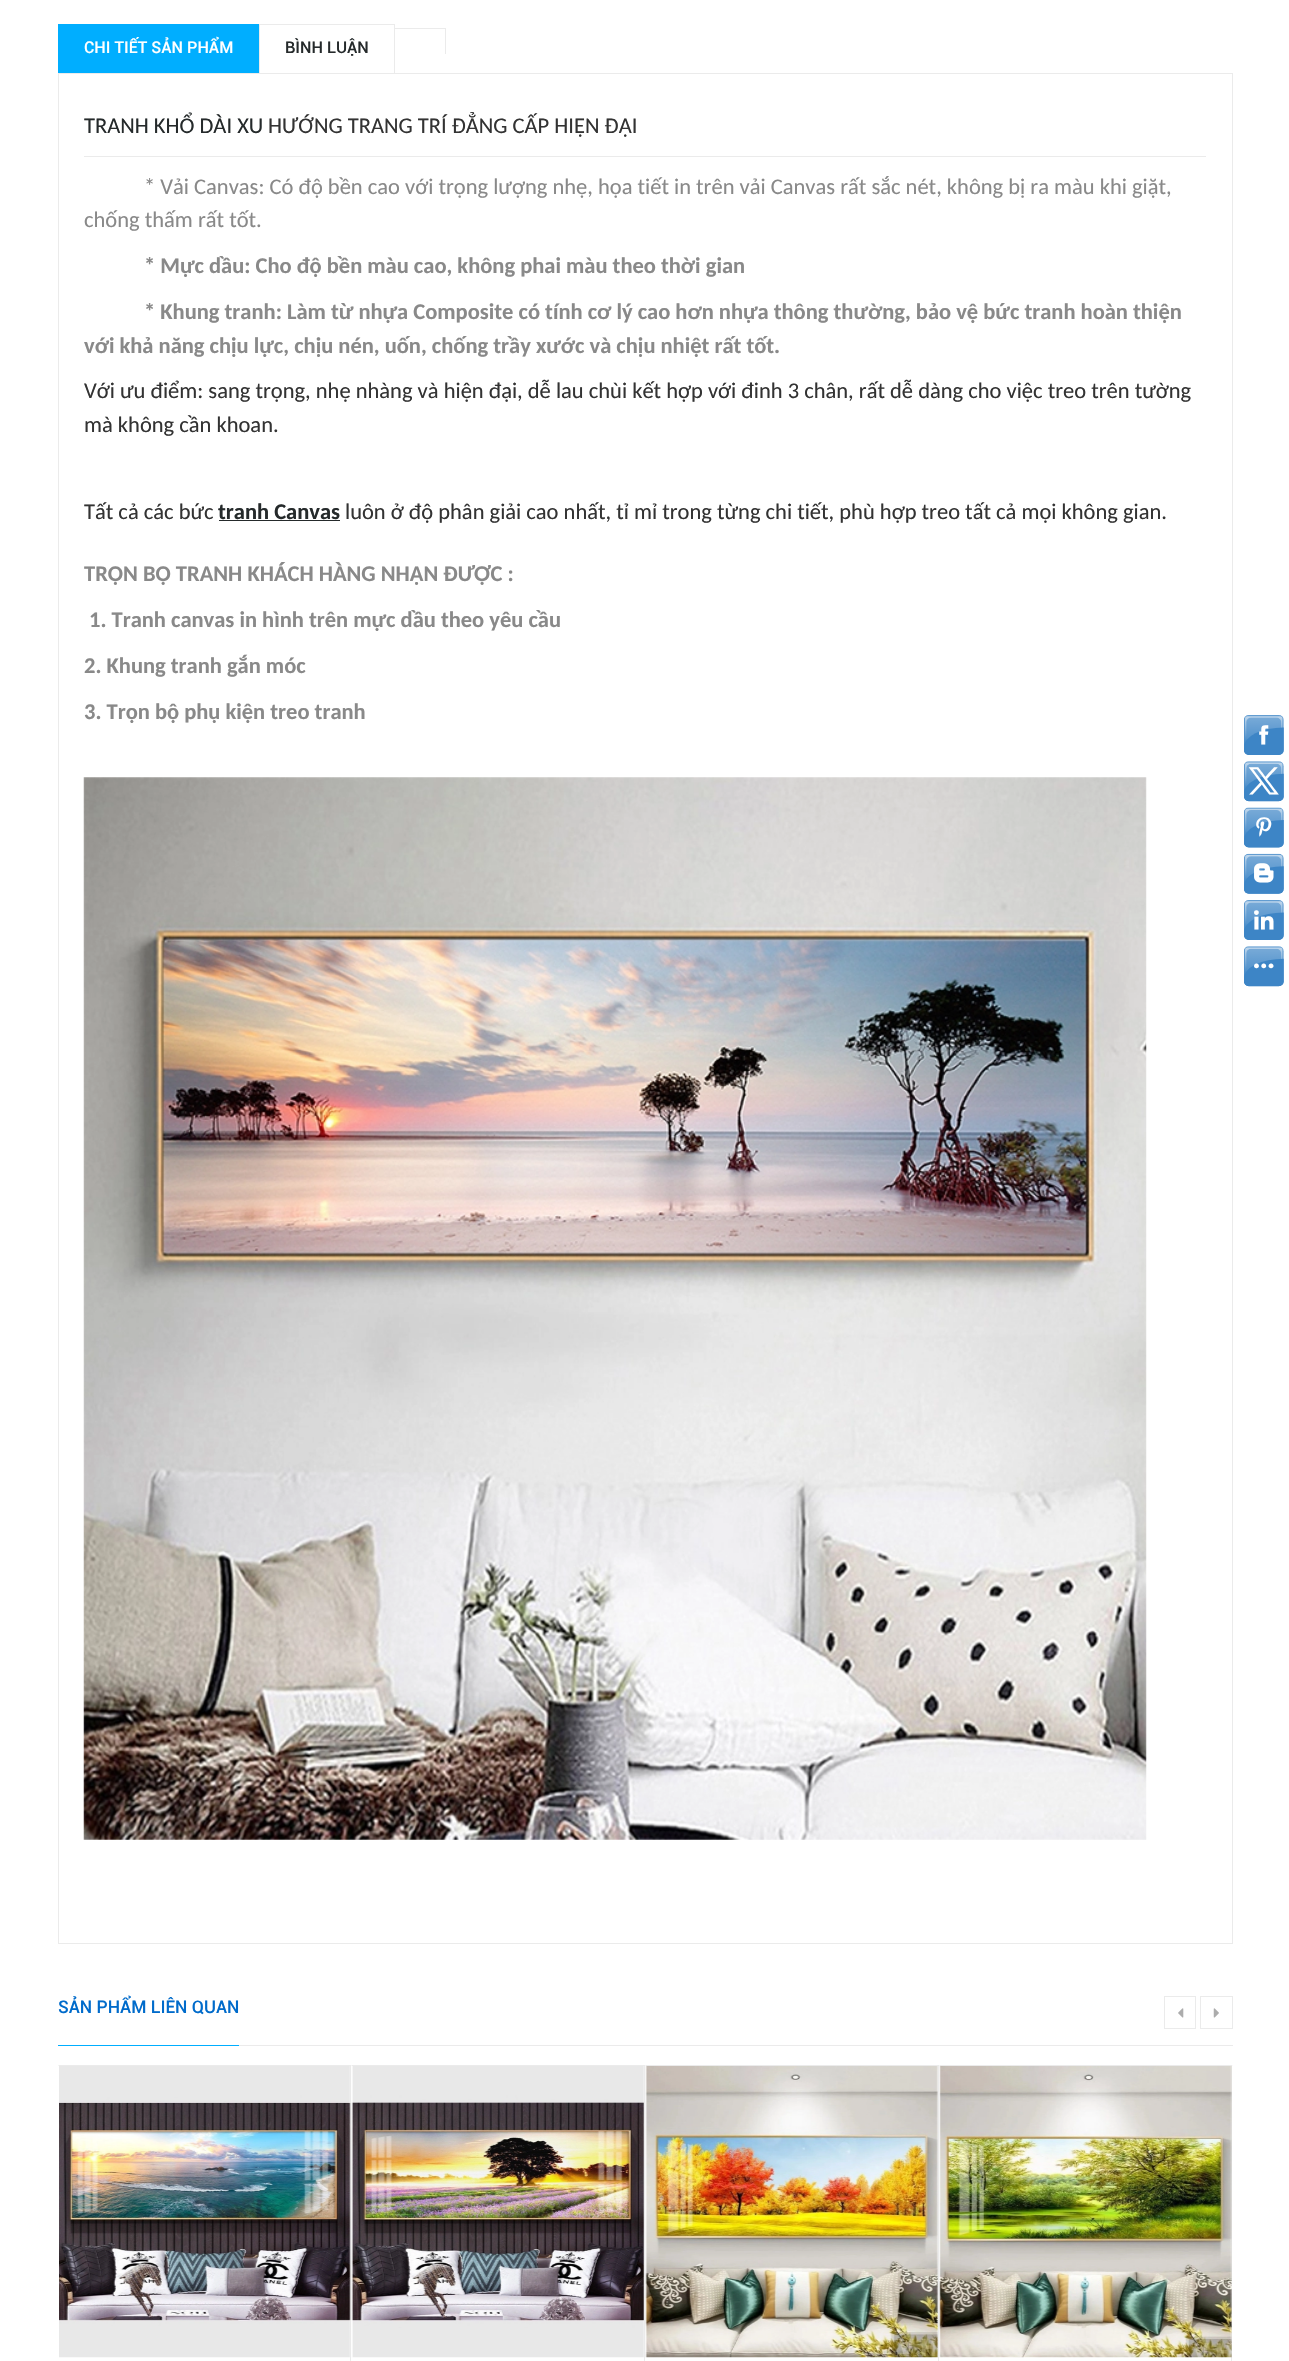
#include "include/core/SkBlurTypes.h"
#include "include/core/SkCanvas.h"
#include "include/core/SkData.h"
#include "include/core/SkFont.h"
#include "include/core/SkFontMgr.h"
#include "include/core/SkImage.h"
#include "include/core/SkMaskFilter.h"
#include "include/core/SkPaint.h"
#include "include/core/SkPathBuilder.h"
#include "include/core/SkTextBlob.h"
#include "include/effects/SkDashPathEffect.h"
#include "include/effects/SkGradientShader.h"
#include "include/utils/SkParsePath.h"

extern sk_sp<SkFontMgr> fontMgr;

void draw(SkCanvas* canvas) {
  SkPaint p;
  p.setAntiAlias(true);
  canvas->clear(SK_ColorWHITE);
  p.setColor(SkColorSetRGB(0, 174, 255));
  canvas->drawRect(SkRect::MakeLTRB(58, 24, 259, 73), p);
  p.setColor(SkColorSetRGB(235, 235, 235));
  canvas->drawRect(SkRect::MakeLTRB(259, 24, 395, 25), p);
  canvas->drawRect(SkRect::MakeLTRB(394, 24, 395, 73), p);
  canvas->drawRect(SkRect::MakeLTRB(259, 24, 260, 73), p);
  canvas->drawRect(SkRect::MakeLTRB(394, 28, 446, 29), p);
  canvas->drawRect(SkRect::MakeLTRB(445, 28, 446, 54), p);
  p.setStyle(SkPaint::kStroke_Style);
  p.setStrokeWidth(1);
  canvas->drawRect(SkRect::MakeLTRB(58.5f, 73.5f, 1232.5f, 1943.5f), p);
  p.setStyle(SkPaint::kFill_Style);
  canvas->drawRect(SkRect::MakeLTRB(84, 156, 1206, 157), p);
  p.setColor(SkColorSetRGB(37, 42, 43));
  canvas->drawRect(SkRect::MakeLTRB(219, 520, 340, 521), p);
  canvas->drawImageRect(SkImages::DeferredFromEncodedData(SkData::MakeFromFileName("images/1.png")), SkRect::MakeLTRB(83, 777, 1147, 1840), SkSamplingOptions());
  p.setColor(SkColorSetRGB(235, 235, 235));
  canvas->drawRect(SkRect::MakeLTRB(239, 2045, 1233, 2046), p);
  p.setColor(SkColorSetRGB(0, 174, 255));
  canvas->drawRect(SkRect::MakeLTRB(58, 2045, 239, 2046), p);
  p.setStyle(SkPaint::kStroke_Style);
  p.setColor(SkColorSetRGB(235, 235, 235));
  canvas->drawRect(SkRect::MakeLTRB(1164.5f, 1996.5f, 1195.5f, 2028.5f), p);
  canvas->drawImageRect(SkImages::DeferredFromEncodedData(SkData::MakeFromFileName("images/2.png")), SkRect::MakeLTRB(1178, 2008, 1184, 2018), SkSamplingOptions());
  canvas->drawRect(SkRect::MakeLTRB(1200.5f, 1996.5f, 1232.5f, 2028.5f), p);
  canvas->drawImageRect(SkImages::DeferredFromEncodedData(SkData::MakeFromFileName("images/3.png")), SkRect::MakeLTRB(1213, 2008, 1219, 2018), SkSamplingOptions());
  p.setStyle(SkPaint::kFill_Style);
  canvas->drawPath(SkPathBuilder().moveTo(58, 2065).lineTo(351, 2065).lineTo(350, 2066).lineTo(59, 2066).close().detach(), p);
  canvas->drawRect(SkRect::MakeLTRB(350, 2065, 351, 2361), p);
  canvas->drawImageRect(SkImages::DeferredFromEncodedData(SkData::MakeFromFileName("images/4.png")), SkRect::MakeLTRB(59, 2066, 351, 2358), SkSamplingOptions());
  canvas->drawPath(SkPathBuilder().moveTo(351, 2065).lineTo(645, 2065).lineTo(644, 2066).lineTo(352, 2066).close().detach(), p);
  canvas->drawRect(SkRect::MakeLTRB(644, 2065, 645, 2361), p);
  canvas->drawImageRect(SkImages::DeferredFromEncodedData(SkData::MakeFromFileName("images/5.png")), SkRect::MakeLTRB(351, 2066, 644, 2358), SkSamplingOptions());
  canvas->drawPath(SkPathBuilder().moveTo(645, 2065).lineTo(939, 2065).lineTo(938, 2066).lineTo(646, 2066).close().detach(), p);
  canvas->drawRect(SkRect::MakeLTRB(938, 2065, 939, 2361), p);
  canvas->drawImageRect(SkImages::DeferredFromEncodedData(SkData::MakeFromFileName("images/6.png")), SkRect::MakeLTRB(645, 2066, 938, 2358), SkSamplingOptions());
  canvas->drawPath(SkPathBuilder().moveTo(939, 2065).lineTo(1232, 2065).lineTo(1231, 2066).lineTo(940, 2066).close().detach(), p);
  canvas->drawRect(SkRect::MakeLTRB(1231, 2065, 1232, 2361), p);
  canvas->drawImageRect(SkImages::DeferredFromEncodedData(SkData::MakeFromFileName("images/7.png")), SkRect::MakeLTRB(939, 2066, 1232, 2358), SkSamplingOptions());
  canvas->save();
  canvas->clipRect(SkRect::MakeLTRB(58, 2065, 1233, 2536));
  canvas->drawPath(SkPathBuilder().moveTo(1232, 2065).lineTo(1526, 2065).lineTo(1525, 2066).lineTo(1234, 2066).close().detach(), p);
  canvas->restore();
  canvas->drawImageRect(SkImages::DeferredFromEncodedData(SkData::MakeFromFileName("images/8.png")), SkRect::MakeLTRB(1244, 715, 1284, 987), SkSamplingOptions());
  SkFont font1(fontMgr->matchFamilyStyle("Roboto", SkFontStyle(500, SkFontStyle::kNormal_Width, SkFontStyle::kUpright_Slant)), 16.25f);
  font1.setSubpixel(true);
  p.setColor(SK_ColorWHITE);
  canvas->drawString("CHI TIẾT SẢN PHẨM", 84, 53, font1, p);
  p.setColor(SkColorSetRGB(37, 42, 43));
  canvas->drawString("BÌNH LUẬN", 285, 53, font1, p);
  SkFont font2(fontMgr->matchFamilyStyle("Carlito", SkFontStyle::Normal()), 22.5f);
  font2.setSubpixel(true);
  canvas->drawString("TRANH KHỔ DÀI XU", 84, 133, font2, p);
  p.setColor(SkColorSetRGB(51, 51, 51));
  canvas->drawString("HƯỚNG TRANG TRÍ ĐẲNG CẤP HIỆN ĐẠI", 268, 133, font2, p);
  p.setColor(SkColorSetRGB(137, 137, 137));
  canvas->drawString("* Vải Canvas: Có độ bền cao với trọng lượng nhẹ, họa tiết in trên vải Canvas rất sắc nét, không bị ra màu khi giặt,", 144, 194, font2, p);
  canvas->drawString("chống thấm rất tốt.", 84, 227, font2, p);
  SkFont font3(fontMgr->matchFamilyStyle("Carlito", SkFontStyle::Bold()), 22.5f);
  font3.setSubpixel(true);
  canvas->drawString("* Mực dầu: Cho độ bền màu cao, không phai màu theo thời gian", 144, 273, font3, p);
  canvas->drawString("* Khung tranh: Làm từ nhựa Composite có tính cơ lý cao hơn nhựa thông thường, bảo vệ bức tranh hoàn thiện", 144, 319, font3, p);
  canvas->drawString("với khả năng chịu lực, chịu nén, uốn, chống trầy xước và chịu nhiệt rất tốt.", 84, 353, font3, p);
  p.setColor(SkColorSetRGB(51, 51, 51));
  canvas->drawString("Với ưu điểm: sang trọng, nhẹ nhàng và hiện đại, dễ lau chùi kết hợp với đinh 3 chân, rất dễ dàng cho việc treo trên tường", 84, 398, font2, p);
  canvas->drawString("mà không cần khoan.", 84, 432, font2, p);
  canvas->drawString("Tất cả các bức", 84, 519, font2, p);
  p.setColor(SkColorSetRGB(37, 42, 43));
  canvas->drawString("tranh Canvas", 218, 519, font3, p);
  p.setColor(SkColorSetRGB(51, 51, 51));
  canvas->drawString("luôn ở độ phân giải cao nhất, tỉ mỉ trong từng chi tiết, phù hợp treo tất cả mọi không gian.", 345, 519, font2, p);
  p.setColor(SkColorSetRGB(137, 137, 137));
  canvas->drawString("TRỌN BỘ TRANH KHÁCH HÀNG NHẬN ĐƯỢC :", 84, 581, font3, p);
  canvas->drawString("1. Tranh canvas in hình trên mực dầu theo yêu cầu", 89, 627, font3, p);
  canvas->drawString("2. Khung tranh gắn móc", 84, 673, font3, p);
  canvas->drawString("3. Trọn bộ phụ kiện treo tranh", 84, 719, font3, p);
  SkFont font4(fontMgr->matchFamilyStyle("Roboto", SkFontStyle(500, SkFontStyle::kNormal_Width, SkFontStyle::kUpright_Slant)), 17.5f);
  font4.setSubpixel(true);
  p.setColor(SkColorSetRGB(0, 107, 203));
  canvas->drawString("SẢN PHẨM LIÊN QUAN", 58, 2013, font4, p);
}
